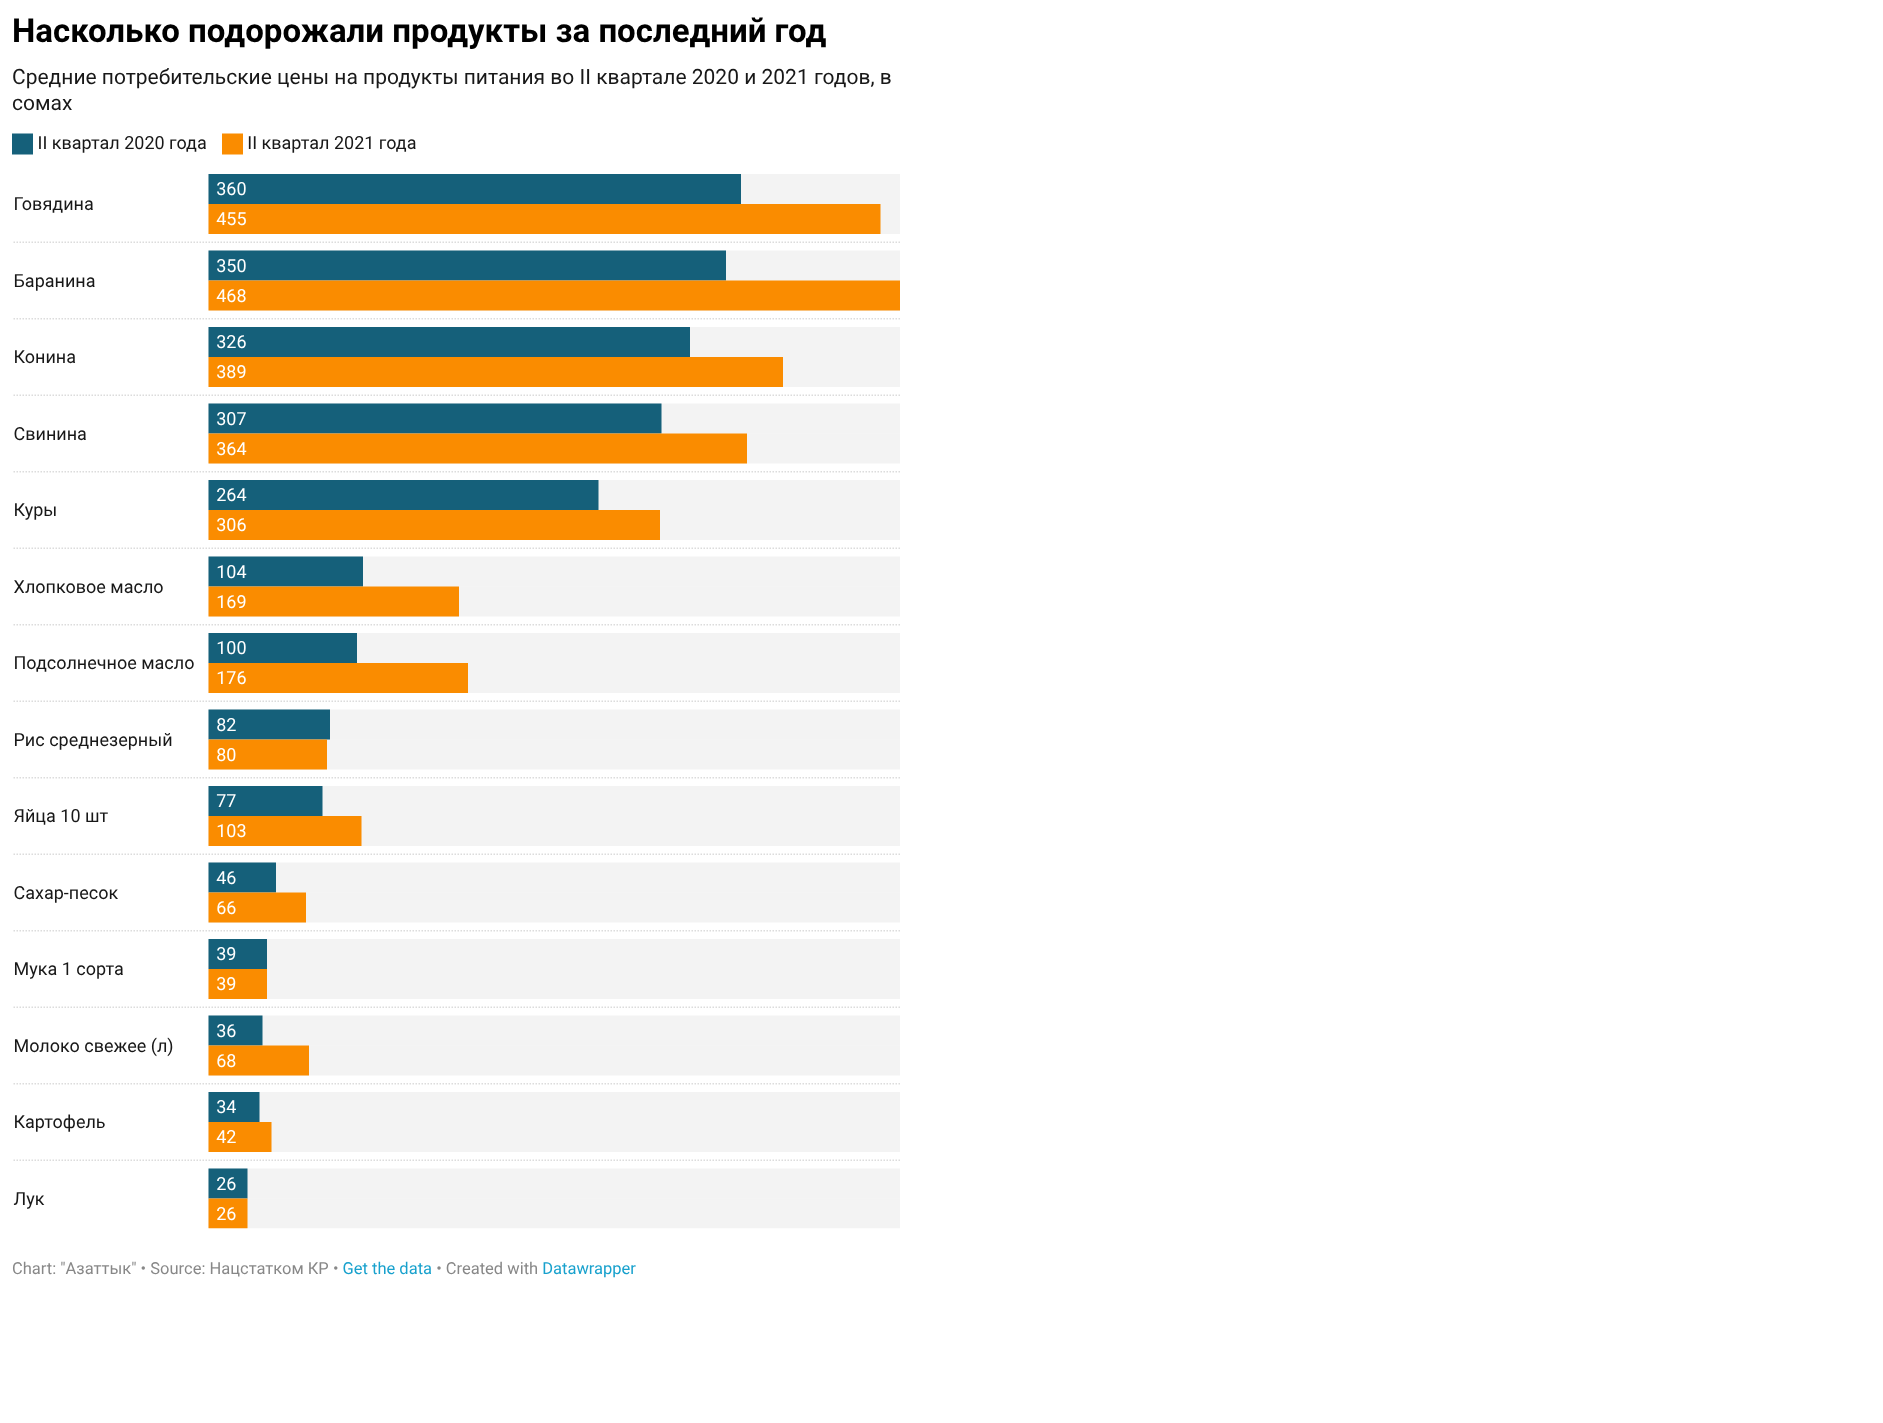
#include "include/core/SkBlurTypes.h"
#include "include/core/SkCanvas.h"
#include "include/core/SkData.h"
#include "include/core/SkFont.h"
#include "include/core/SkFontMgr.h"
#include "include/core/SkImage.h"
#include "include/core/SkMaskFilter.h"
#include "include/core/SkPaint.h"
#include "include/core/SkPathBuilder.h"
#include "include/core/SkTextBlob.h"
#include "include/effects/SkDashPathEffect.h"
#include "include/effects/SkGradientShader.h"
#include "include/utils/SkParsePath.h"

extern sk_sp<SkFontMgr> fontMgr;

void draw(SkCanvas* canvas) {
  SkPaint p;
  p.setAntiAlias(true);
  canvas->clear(SK_ColorWHITE);
  canvas->drawImageRect(SkImages::DeferredFromEncodedData(SkData::MakeFromFileName("images/1.png")), SkRect::MakeLTRB(12, 17, 900, 1278), SkSamplingOptions());
}
